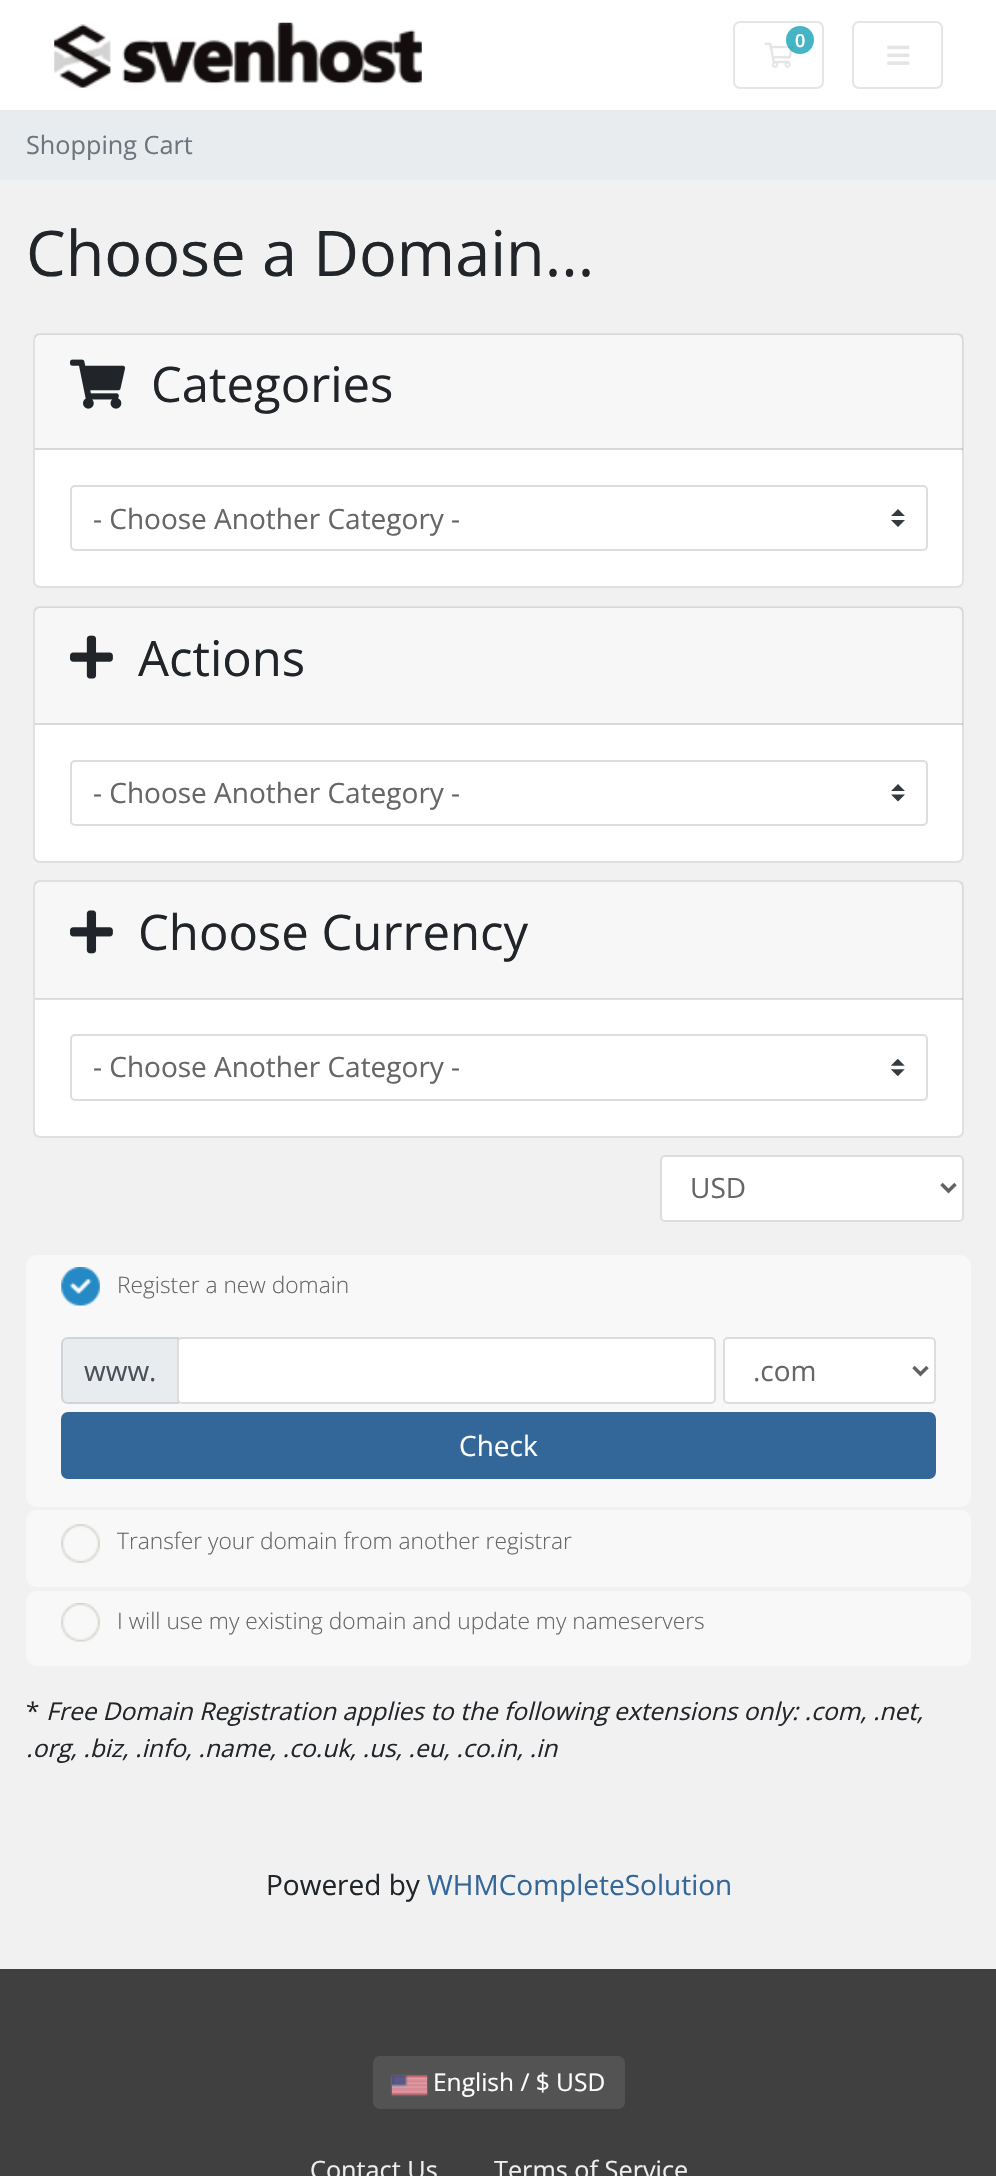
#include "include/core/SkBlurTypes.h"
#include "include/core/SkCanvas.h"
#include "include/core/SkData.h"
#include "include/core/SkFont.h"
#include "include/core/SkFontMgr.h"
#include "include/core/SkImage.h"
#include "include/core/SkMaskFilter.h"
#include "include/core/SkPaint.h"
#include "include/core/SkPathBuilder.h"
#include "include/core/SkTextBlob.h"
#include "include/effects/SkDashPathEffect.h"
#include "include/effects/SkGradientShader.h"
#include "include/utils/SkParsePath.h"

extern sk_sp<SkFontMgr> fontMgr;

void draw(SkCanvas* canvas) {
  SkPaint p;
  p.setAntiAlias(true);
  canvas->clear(SkColorSetRGB(241, 241, 241));
  p.setColor(SK_ColorWHITE);
  canvas->drawRect(SkRect::MakeLTRB(0, 0, 996, 110), p);
  canvas->drawImageRect(SkImages::DeferredFromEncodedData(SkData::MakeFromFileName("images/1.png")), SkRect::MakeLTRB(54, 22, 422, 88), SkSamplingOptions());
  p.setStyle(SkPaint::kStroke_Style);
  p.setStrokeWidth(2);
  p.setColor(SkColorSetRGB(229, 229, 229));
  canvas->drawRoundRect(SkRect::MakeLTRB(734, 22, 823, 88), 6, 6, p);
  canvas->drawImageRect(SkImages::DeferredFromEncodedData(SkData::MakeFromFileName("images/2.png")), SkRect::MakeLTRB(764, 42, 793, 68), SkSamplingOptions());
  p.setStyle(SkPaint::kFill_Style);
  p.setColor(SkColorSetARGB(204, 23, 162, 184));
  canvas->drawCircle(800, 40, 14, p);
  p.setStyle(SkPaint::kStroke_Style);
  p.setColor(SkColorSetRGB(229, 229, 229));
  canvas->drawRoundRect(SkRect::MakeLTRB(853, 22, 942, 88), 6, 6, p);
  canvas->drawImageRect(SkImages::DeferredFromEncodedData(SkData::MakeFromFileName("images/3.png")), SkRect::MakeLTRB(887, 45, 910, 65), SkSamplingOptions());
  p.setStyle(SkPaint::kFill_Style);
  p.setColor(SkColorSetRGB(233, 236, 239));
  canvas->drawRect(SkRect::MakeLTRB(0, 110, 996, 180), p);
  p.setColor(SK_ColorWHITE);
  canvas->drawRoundRect(SkRect::MakeLTRB(33, 333, 964, 588), 7, 7, p);
  p.setStyle(SkPaint::kStroke_Style);
  p.setColor(SkColorSetARGB(31, 0, 0, 0));
  canvas->drawRoundRect(SkRect::MakeLTRB(34, 334, 963, 587), 6, 6, p);
  p.setStyle(SkPaint::kFill_Style);
  p.setColor(SkColorSetARGB(8, 0, 0, 0));
  canvas->drawRect(SkRect::MakeLTRB(35, 334, 963, 450), p);
  p.setColor(SkColorSetARGB(31, 0, 0, 0));
  canvas->drawRect(SkRect::MakeLTRB(35, 448, 963, 450), p);
  canvas->drawImageRect(SkImages::DeferredFromEncodedData(SkData::MakeFromFileName("images/4.png")), SkRect::MakeLTRB(70, 359, 126, 409), SkSamplingOptions());
  p.setColor(SkColorSetRGB(52, 58, 64));
  canvas->drawPath(SkPathBuilder().moveTo(898, 509).lineTo(891, 516).lineTo(905, 516).close().moveTo(898, 527).lineTo(891, 520).lineTo(905, 520).close().detach(), p);
  p.setStyle(SkPaint::kStroke_Style);
  p.setColor(SkColorSetRGB(221, 221, 221));
  canvas->drawRoundRect(SkRect::MakeLTRB(71, 486, 927, 550), 4, 4, p);
  p.setStyle(SkPaint::kFill_Style);
  p.setColor(SK_ColorWHITE);
  canvas->drawRoundRect(SkRect::MakeLTRB(33, 606, 964, 863), 7, 7, p);
  p.setStyle(SkPaint::kStroke_Style);
  p.setColor(SkColorSetARGB(31, 0, 0, 0));
  canvas->drawRoundRect(SkRect::MakeLTRB(34, 607, 963, 862), 6, 6, p);
  p.setStyle(SkPaint::kFill_Style);
  p.setColor(SkColorSetARGB(8, 0, 0, 0));
  canvas->drawRect(SkRect::MakeLTRB(35, 607, 963, 725), p);
  p.setColor(SkColorSetARGB(31, 0, 0, 0));
  canvas->drawRect(SkRect::MakeLTRB(35, 723, 963, 725), p);
  canvas->drawImageRect(SkImages::DeferredFromEncodedData(SkData::MakeFromFileName("images/5.png")), SkRect::MakeLTRB(70, 635, 113, 679), SkSamplingOptions());
  p.setColor(SkColorSetRGB(52, 58, 64));
  canvas->drawPath(SkPathBuilder().moveTo(898, 784).lineTo(891, 791).lineTo(905, 791).close().moveTo(898, 801.5f).lineTo(891, 794.5f).lineTo(905, 794.5f).close().detach(), p);
  p.setStyle(SkPaint::kStroke_Style);
  p.setColor(SkColorSetRGB(221, 221, 221));
  canvas->drawRoundRect(SkRect::MakeLTRB(71, 761, 927, 825), 4, 4, p);
  p.setStyle(SkPaint::kFill_Style);
  p.setColor(SK_ColorWHITE);
  canvas->drawRoundRect(SkRect::MakeLTRB(33, 880, 964, 1138), 7, 7, p);
  p.setStyle(SkPaint::kStroke_Style);
  p.setColor(SkColorSetARGB(31, 0, 0, 0));
  canvas->drawRoundRect(SkRect::MakeLTRB(34, 881, 963, 1137), 6, 6, p);
  p.setStyle(SkPaint::kFill_Style);
  p.setColor(SkColorSetARGB(8, 0, 0, 0));
  canvas->drawRect(SkRect::MakeLTRB(35, 882, 963, 999), p);
  p.setColor(SkColorSetARGB(31, 0, 0, 0));
  canvas->drawRect(SkRect::MakeLTRB(35, 998, 963, 1000), p);
  canvas->drawImageRect(SkImages::DeferredFromEncodedData(SkData::MakeFromFileName("images/6.png")), SkRect::MakeLTRB(70, 910, 113, 954), SkSamplingOptions());
  canvas->drawImageRect(SkImages::DeferredFromEncodedData(SkData::MakeFromFileName("images/7.png")), SkRect::MakeLTRB(891, 1059, 905, 1076), SkSamplingOptions());
  p.setStyle(SkPaint::kStroke_Style);
  p.setColor(SkColorSetRGB(221, 221, 221));
  canvas->drawRoundRect(SkRect::MakeLTRB(71, 1035, 927, 1100), 4, 4, p);
  p.setStyle(SkPaint::kFill_Style);
  p.setColor(SK_ColorWHITE);
  canvas->drawRoundRect(SkRect::MakeLTRB(661, 1156, 963, 1221), 4, 4, p);
  p.setStyle(SkPaint::kStroke_Style);
  p.setColor(SkColorSetRGB(221, 221, 221));
  canvas->drawRoundRect(SkRect::MakeLTRB(661, 1156, 963, 1221), 4, 4, p);
  p.setStrokeWidth(3.5f);
  p.setColor(SkColorSetRGB(98, 98, 98));
  canvas->drawPath(SkPathBuilder().moveTo(941.5f, 1184).lineTo(948.5f, 1191).lineTo(955.5f, 1184).detach(), p);
  p.setStyle(SkPaint::kFill_Style);
  p.setColor(SkColorSetRGB(248, 248, 248));
  canvas->drawRoundRect(SkRect::MakeLTRB(26, 1255, 971, 1507), 11, 11, p);
  canvas->drawImageRect(SkImages::DeferredFromEncodedData(SkData::MakeFromFileName("images/8.png")), SkRect::MakeLTRB(61, 1267, 100, 1306), SkSamplingOptions());
  p.setColor(SkColorSetRGB(233, 236, 239));
  canvas->drawPath(SkPathBuilder().moveTo(68, 1338).lineTo(178, 1338).lineTo(178, 1403).lineTo(68, 1403).cubicTo(64.5f, 1403, 62, 1400.5f, 62, 1397).lineTo(62, 1344).cubicTo(62, 1340.5f, 64.5f, 1338, 68, 1338).close().detach(), p);
  p.setStyle(SkPaint::kStroke_Style);
  p.setStrokeWidth(2);
  p.setColor(SkColorSetRGB(206, 212, 218));
  canvas->drawPath(SkPathBuilder().moveTo(68, 1338).lineTo(178, 1338).lineTo(178, 1403).lineTo(68, 1403).cubicTo(64.5f, 1403, 62, 1400.5f, 62, 1397).lineTo(62, 1344).cubicTo(62, 1340.5f, 64.5f, 1338, 68, 1338).close().detach(), p);
  p.setStyle(SkPaint::kFill_Style);
  p.setColor(SK_ColorWHITE);
  canvas->drawRoundRect(SkRect::MakeLTRB(178, 1338, 715, 1403), 4, 4, p);
  p.setStyle(SkPaint::kStroke_Style);
  p.setColor(SkColorSetRGB(221, 221, 221));
  canvas->drawRoundRect(SkRect::MakeLTRB(178, 1338, 715, 1403), 4, 4, p);
  p.setStyle(SkPaint::kFill_Style);
  p.setColor(SK_ColorWHITE);
  canvas->drawRoundRect(SkRect::MakeLTRB(724, 1338, 935, 1403), 4, 4, p);
  p.setStyle(SkPaint::kStroke_Style);
  p.setColor(SkColorSetRGB(221, 221, 221));
  canvas->drawRoundRect(SkRect::MakeLTRB(724, 1338, 935, 1403), 4, 4, p);
  p.setStrokeWidth(3.5f);
  p.setColor(SkColorSetRGB(98, 98, 98));
  canvas->drawPath(SkPathBuilder().moveTo(913.5f, 1367).lineTo(920.5f, 1374).lineTo(927.5f, 1367).detach(), p);
  p.setStyle(SkPaint::kFill_Style);
  p.setColor(SkColorSetRGB(51, 102, 153));
  canvas->drawRoundRect(SkRect::MakeLTRB(62, 1413, 935, 1478), 6, 6, p);
  p.setStyle(SkPaint::kStroke_Style);
  p.setStrokeWidth(2);
  canvas->drawRoundRect(SkRect::MakeLTRB(62, 1413, 935, 1478), 6, 6, p);
  p.setStyle(SkPaint::kFill_Style);
  p.setColor(SkColorSetRGB(248, 248, 248));
  canvas->drawRoundRect(SkRect::MakeLTRB(26, 1510, 971, 1587), 11, 11, p);
  canvas->drawImageRect(SkImages::DeferredFromEncodedData(SkData::MakeFromFileName("images/9.png")), SkRect::MakeLTRB(61, 1524, 100, 1563), SkSamplingOptions());
  canvas->drawRoundRect(SkRect::MakeLTRB(26, 1591, 971, 1666), 11, 11, p);
  canvas->drawImageRect(SkImages::DeferredFromEncodedData(SkData::MakeFromFileName("images/10.png")), SkRect::MakeLTRB(61, 1603, 100, 1642), SkSamplingOptions());
  p.setColor(SkColorSetRGB(64, 64, 64));
  canvas->drawRect(SkRect::MakeLTRB(0, 1969, 996, 2176), p);
  p.setColor(SkColorSetRGB(83, 83, 83));
  canvas->drawRoundRect(SkRect::MakeLTRB(373, 2056, 625, 2109), 7, 7, p);
  p.setColor(SkColorSetRGB(136, 136, 136));
  p.setMaskFilter(SkMaskFilter::MakeBlur(kNormal_SkBlurStyle, 1));
  canvas->drawRect(SkRect::MakeLTRB(392, 2076, 427, 2095), p);
  p.setMaskFilter(nullptr);
  canvas->drawImageRect(SkImages::DeferredFromEncodedData(SkData::MakeFromFileName("images/11.png")), SkRect::MakeLTRB(392, 2075, 427, 2095), SkSamplingOptions());
  SkFont font1(fontMgr->matchFamilyStyle("Open Sans", SkFontStyle(600, SkFontStyle::kNormal_Width, SkFontStyle::kUpright_Slant)), 18);
  font1.setSubpixel(true);
  p.setColor(SK_ColorWHITE);
  canvas->drawString("0", 795, 47, font1, p);
  SkFont font2(fontMgr->matchFamilyStyle("Open Sans", SkFontStyle::Normal()), 25.25f);
  font2.setSubpixel(true);
  p.setColor(SkColorSetRGB(108, 117, 125));
  canvas->drawString("Shopping Cart", 26, 154, font2, p);
  SkFont font3(fontMgr->matchFamilyStyle("Open Sans", SkFontStyle::Normal()), 63);
  font3.setSubpixel(true);
  p.setColor(SkColorSetRGB(33, 37, 41));
  canvas->drawString("Choose a Domain...", 26, 276, font3, p);
  SkFont font4(fontMgr->matchFamilyStyle("Open Sans", SkFontStyle::Normal()), 49);
  font4.setSubpixel(true);
  canvas->drawString("Categories", 151, 402, font4, p);
  SkFont font5(fontMgr->matchFamilyStyle("Open Sans", SkFontStyle::Normal()), 28);
  font5.setSubpixel(true);
  p.setColor(SkColorSetRGB(102, 102, 102));
  canvas->drawString("- Choose Another Category -", 93, 529, font5, p);
  p.setColor(SkColorSetRGB(33, 37, 41));
  canvas->drawString("Actions", 138, 676, font4, p);
  p.setColor(SkColorSetRGB(102, 102, 102));
  canvas->drawString("- Choose Another Category -", 93, 803, font5, p);
  p.setColor(SkColorSetRGB(33, 37, 41));
  canvas->drawString("Choose Currency", 138, 950, font4, p);
  p.setColor(SkColorSetRGB(102, 102, 102));
  canvas->drawString("- Choose Another Category -", 93, 1077, font5, p);
  canvas->drawString("USD", 690, 1198, font5, p);
  SkFont font6(fontMgr->matchFamilyStyle("Open Sans", SkFontStyle(300, SkFontStyle::kNormal_Width, SkFontStyle::kUpright_Slant)), 22.75f);
  font6.setSubpixel(true);
  canvas->drawString("Register a new domain", 117, 1293, font6, p);
  p.setColor(SkColorSetRGB(73, 80, 87));
  canvas->drawString("www.", 84, 1381, font5, p);
  p.setColor(SkColorSetRGB(102, 102, 102));
  canvas->drawString(".com", 753, 1381, font5, p);
  p.setColor(SK_ColorWHITE);
  canvas->drawString("Check", 459, 1456, font5, p);
  p.setColor(SkColorSetRGB(102, 102, 102));
  canvas->drawString("Transfer your domain from another registrar", 117, 1549, font6, p);
  canvas->drawString("I will use my existing domain and update my nameservers", 117, 1629, font6, p);
  SkFont font7(fontMgr->matchFamilyStyle("Open Sans", SkFontStyle::Normal()), 24.5f);
  font7.setSubpixel(true);
  p.setColor(SkColorSetRGB(33, 37, 41));
  canvas->drawString("*", 26, 1720, font7, p);
  SkFont font8(fontMgr->matchFamilyStyle("Open Sans", SkFontStyle::Italic()), 24.5f);
  font8.setSubpixel(true);
  canvas->drawString("Free Domain Registration applies to the following extensions only: .com, .net,", 46, 1720, font8, p);
  canvas->drawString(".org, .biz, .info, .name, .co.uk, .us, .eu, .co.in, .in", 26, 1757, font8, p);
  canvas->drawString("Powered by", 266, 1895, font5, p);
  p.setColor(SkColorSetRGB(51, 102, 153));
  canvas->drawString("WHMCompleteSolution", 427, 1895, font5, p);
  p.setColor(SK_ColorWHITE);
  canvas->drawString("English / $ USD", 433, 2091, font7, p);
  p.setColor(SkColorSetRGB(238, 238, 238));
  canvas->drawString("Contact Us", 310, 2179, font2, p);
  canvas->drawString("Terms of Service", 494, 2179, font2, p);
}
